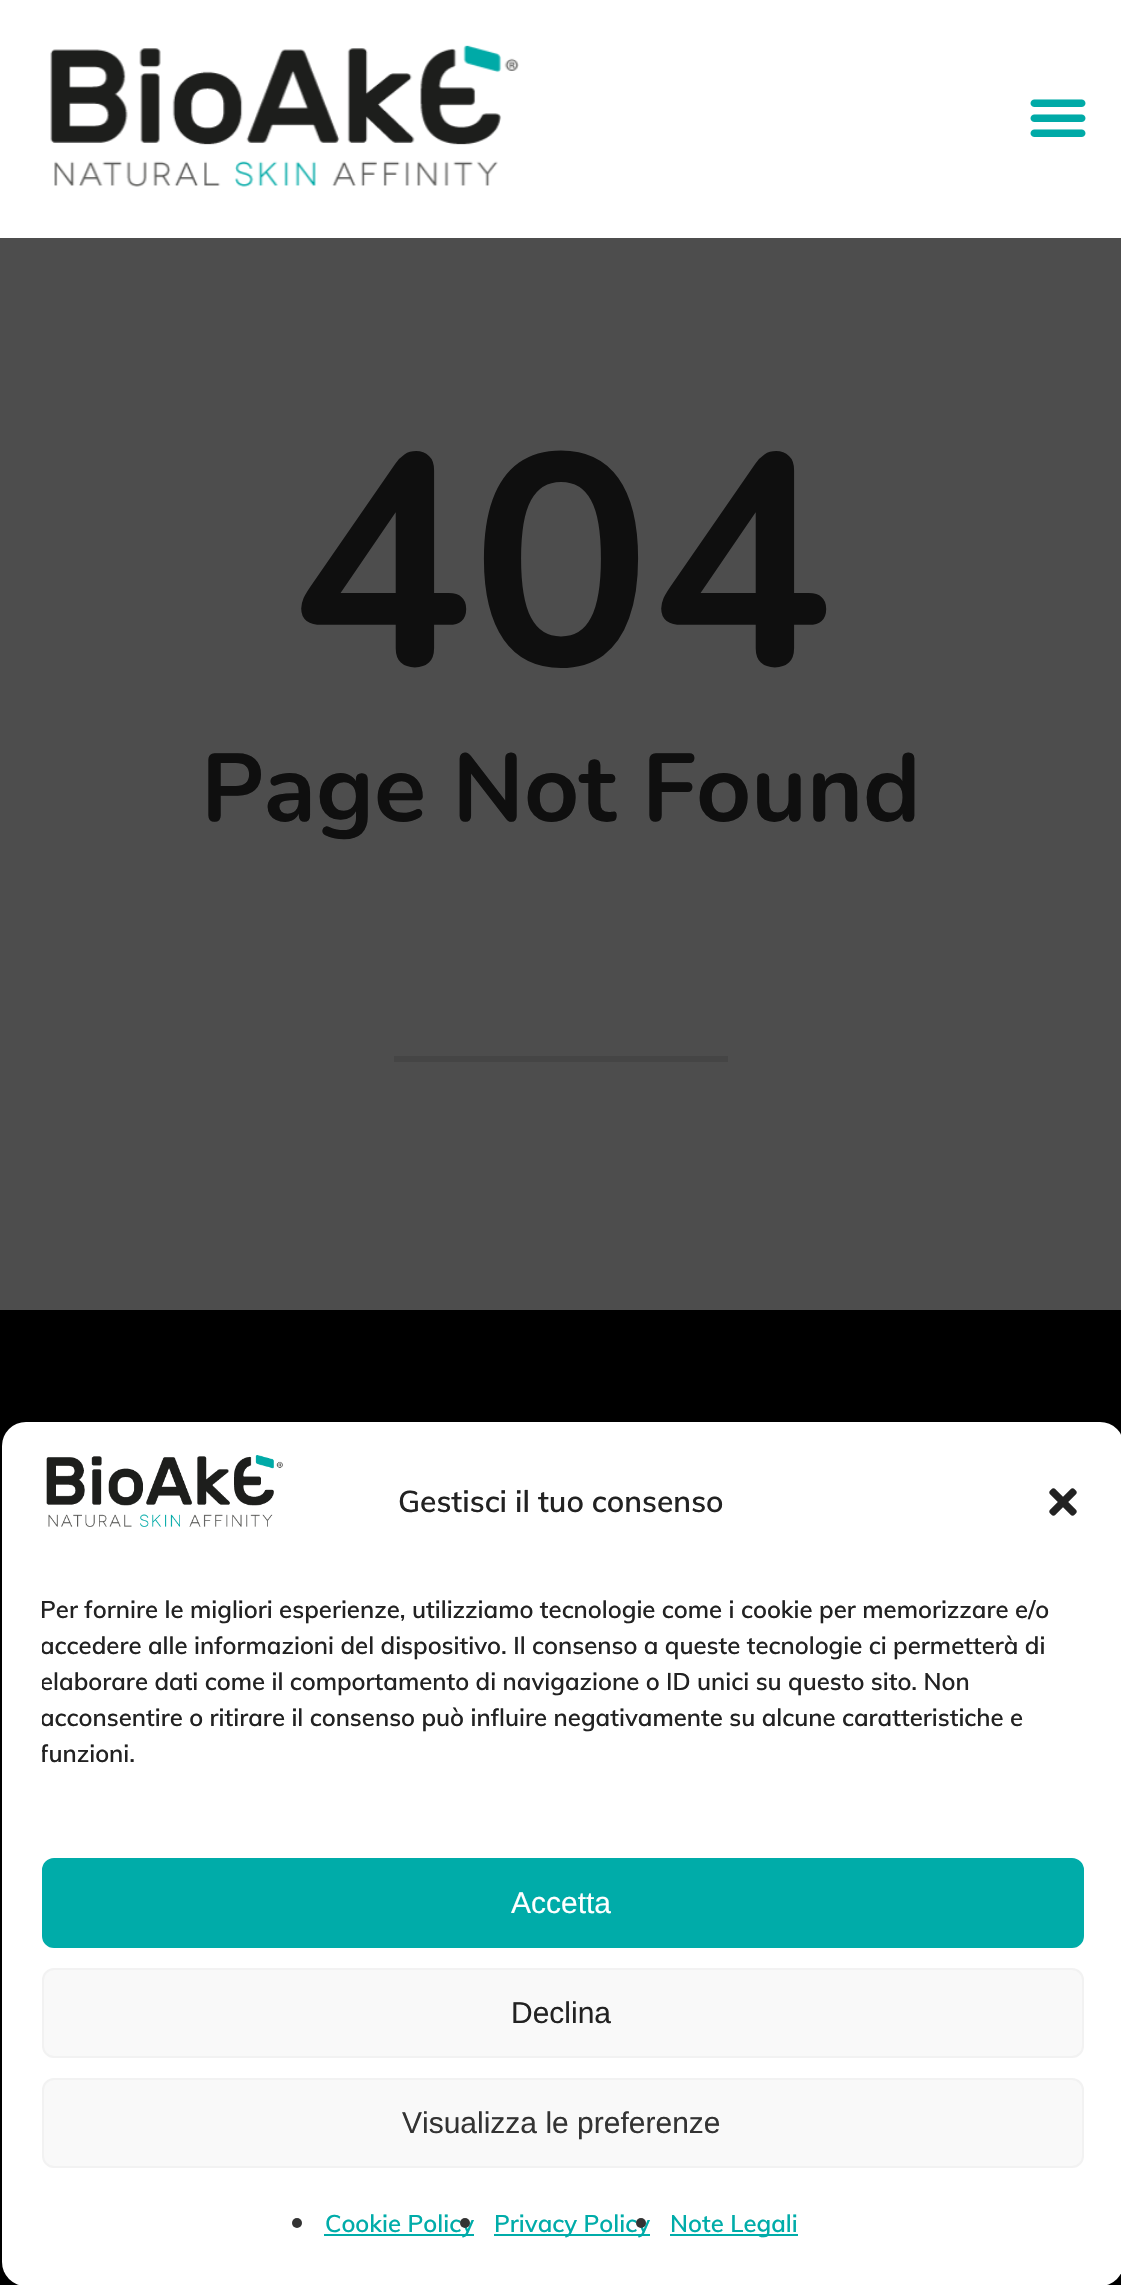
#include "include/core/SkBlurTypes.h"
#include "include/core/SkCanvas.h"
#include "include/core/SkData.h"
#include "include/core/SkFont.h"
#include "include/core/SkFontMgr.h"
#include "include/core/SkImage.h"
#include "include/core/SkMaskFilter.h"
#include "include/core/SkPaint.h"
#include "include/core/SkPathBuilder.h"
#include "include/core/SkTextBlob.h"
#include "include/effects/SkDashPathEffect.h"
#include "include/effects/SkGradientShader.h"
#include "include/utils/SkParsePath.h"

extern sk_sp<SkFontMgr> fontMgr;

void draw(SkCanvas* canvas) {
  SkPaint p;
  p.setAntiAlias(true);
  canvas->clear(SkColorSetRGB(77, 77, 77));
  p.setColor(SK_ColorWHITE);
  canvas->drawRect(SkRect::MakeLTRB(0, 0, 1121, 238), p);
  canvas->drawImageRect(SkImages::DeferredFromEncodedData(SkData::MakeFromFileName("images/1.png")), SkRect::MakeLTRB(50, 45, 519, 187), SkSamplingOptions());
  canvas->drawImageRect(SkImages::DeferredFromEncodedData(SkData::MakeFromFileName("images/2.png")), SkRect::MakeLTRB(1030, 99, 1086, 137), SkSamplingOptions());
  p.setColor(SkColorSetRGB(69, 69, 69));
  canvas->drawRect(SkRect::MakeLTRB(394, 1056, 728, 1062), p);
  p.setColor(SK_ColorBLACK);
  canvas->drawRect(SkRect::MakeLTRB(0, 1310, 1121, 2285), p);
  p.setColor(SK_ColorWHITE);
  canvas->drawRoundRect(SkRect::MakeLTRB(2, 1422, 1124, 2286), 24, 24, p);
  canvas->drawImageRect(SkImages::DeferredFromEncodedData(SkData::MakeFromFileName("images/3.png")), SkRect::MakeLTRB(46, 1455, 283, 1527), SkSamplingOptions());
  canvas->drawImageRect(SkImages::DeferredFromEncodedData(SkData::MakeFromFileName("images/4.png")), SkRect::MakeLTRB(1049, 1488, 1077, 1516), SkSamplingOptions());
  p.setColor(SkColorSetRGB(0, 172, 169));
  canvas->drawRoundRect(SkRect::MakeLTRB(43, 1859, 1083, 1947), 11, 11, p);
  p.setStyle(SkPaint::kStroke_Style);
  p.setStrokeWidth(2);
  canvas->drawRoundRect(SkRect::MakeLTRB(43, 1859, 1083, 1947), 11, 11, p);
  p.setStyle(SkPaint::kFill_Style);
  p.setColor(SkColorSetRGB(249, 249, 249));
  canvas->drawRoundRect(SkRect::MakeLTRB(43, 1969, 1083, 2057), 11, 11, p);
  p.setStyle(SkPaint::kStroke_Style);
  p.setColor(SkColorSetRGB(242, 242, 242));
  canvas->drawRoundRect(SkRect::MakeLTRB(43, 1969, 1083, 2057), 11, 11, p);
  p.setStyle(SkPaint::kFill_Style);
  p.setColor(SkColorSetRGB(249, 249, 249));
  canvas->drawRoundRect(SkRect::MakeLTRB(43, 2079, 1083, 2167), 11, 11, p);
  p.setStyle(SkPaint::kStroke_Style);
  p.setColor(SkColorSetRGB(242, 242, 242));
  canvas->drawRoundRect(SkRect::MakeLTRB(43, 2079, 1083, 2167), 11, 11, p);
  p.setStyle(SkPaint::kFill_Style);
  p.setColor(SkColorSetRGB(51, 51, 51));
  canvas->drawCircle(297, 2223, 5, p);
  p.setColor(SkColorSetRGB(0, 172, 169));
  canvas->drawRect(SkRect::MakeLTRB(324, 2234, 474, 2236), p);
  canvas->drawRect(SkRect::MakeLTRB(494, 2234, 650, 2236), p);
  canvas->drawRect(SkRect::MakeLTRB(670, 2234, 798, 2236), p);
  SkFont font1(fontMgr->matchFamilyStyle("Nunito", SkFontStyle::Bold()), 300);
  font1.setSubpixel(true);
  p.setColor(SkColorSetRGB(15, 15, 15));
  canvas->drawString("404", 291, 665, font1, p);
  SkFont font2(fontMgr->matchFamilyStyle("Nunito", SkFontStyle::Bold()), 96);
  font2.setSubpixel(true);
  canvas->drawString("Page Not Found", 201, 821, font2, p);
  SkFont font3(fontMgr->matchFamilyStyle("Muli", SkFontStyle(600, SkFontStyle::kNormal_Width, SkFontStyle::kUpright_Slant)), 30);
  font3.setSubpixel(true);
  p.setColor(SkColorSetRGB(34, 34, 34));
  canvas->drawString("Gestisci il tuo consenso", 398, 1512, font3, p);
  SkFont font4(fontMgr->matchFamilyStyle("Muli", SkFontStyle(600, SkFontStyle::kNormal_Width, SkFontStyle::kUpright_Slant)), 24);
  font4.setSubpixel(true);
  canvas->drawString("Per fornire le migliori esperienze, utilizziamo tecnologie come i cookie per memorizzare e/o", 40, 1618, font4, p);
  canvas->save();
  canvas->clipRect(SkRect::MakeLTRB(42, 1592, 1084, 1818));
  canvas->drawString("accedere alle informazioni del dispositivo. Il consenso a queste tecnologie ci permetterà di", 40, 1654, font4, p);
  canvas->drawString("elaborare dati come il comportamento di navigazione o ID unici su questo sito. Non", 40, 1690, font4, p);
  canvas->drawString("acconsentire o ritirare il consenso può influire negativamente su alcune caratteristiche e", 40, 1726, font4, p);
  canvas->drawString("funzioni.", 40, 1762, font4, p);
  canvas->restore();
  SkFont font5(fontMgr->matchFamilyStyle("Liberation Sans", SkFontStyle::Normal()), 30);
  font5.setSubpixel(true);
  p.setColor(SK_ColorWHITE);
  canvas->drawString("Accetta", 511, 1913, font5, p);
  p.setColor(SkColorSetRGB(34, 34, 34));
  canvas->drawString("Declina", 511, 2023, font5, p);
  p.setColor(SkColorSetRGB(51, 51, 51));
  canvas->drawString("Visualizza le preferenze", 402, 2133, font5, p);
  p.setColor(SkColorSetRGB(0, 172, 169));
  canvas->drawString("Cookie Policy", 325, 2232, font4, p);
  p.setColor(SkColorSetRGB(51, 51, 51));
  canvas->drawCircle(465, 2223, 5, p);
  p.setColor(SkColorSetRGB(0, 172, 169));
  canvas->drawString("Privacy Policy", 494, 2232, font4, p);
  p.setColor(SkColorSetRGB(51, 51, 51));
  canvas->drawCircle(641, 2223, 5, p);
  p.setColor(SkColorSetRGB(0, 172, 169));
  canvas->drawString("Note Legali", 670, 2232, font4, p);
}
